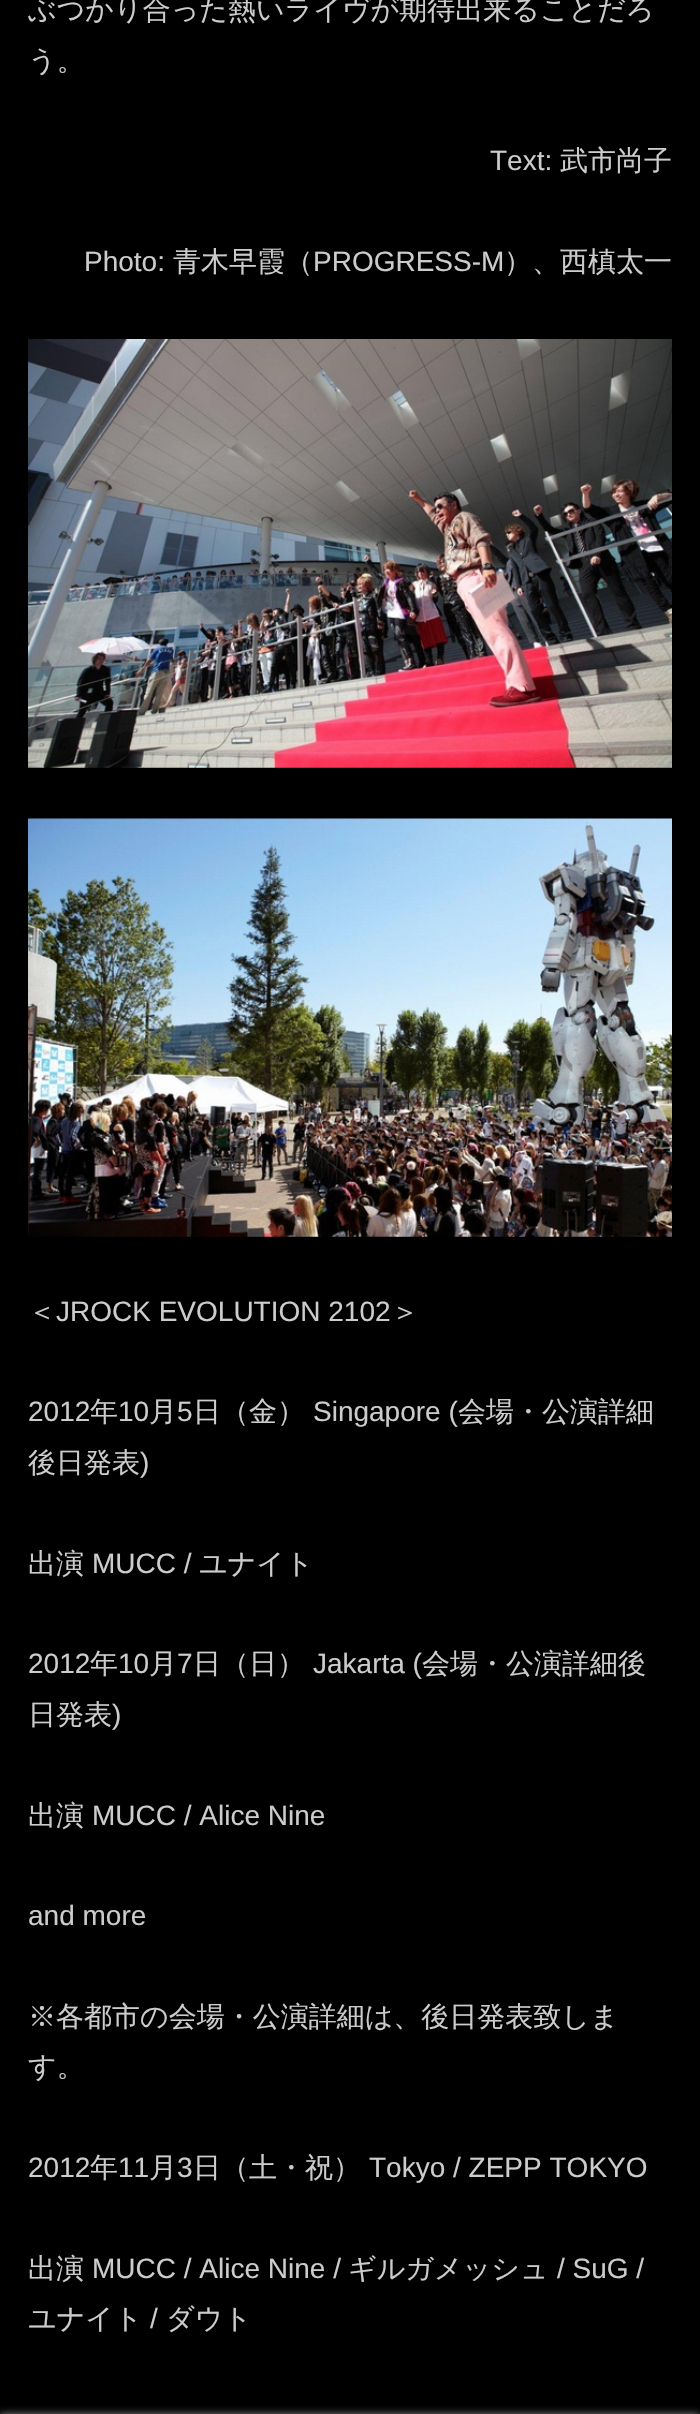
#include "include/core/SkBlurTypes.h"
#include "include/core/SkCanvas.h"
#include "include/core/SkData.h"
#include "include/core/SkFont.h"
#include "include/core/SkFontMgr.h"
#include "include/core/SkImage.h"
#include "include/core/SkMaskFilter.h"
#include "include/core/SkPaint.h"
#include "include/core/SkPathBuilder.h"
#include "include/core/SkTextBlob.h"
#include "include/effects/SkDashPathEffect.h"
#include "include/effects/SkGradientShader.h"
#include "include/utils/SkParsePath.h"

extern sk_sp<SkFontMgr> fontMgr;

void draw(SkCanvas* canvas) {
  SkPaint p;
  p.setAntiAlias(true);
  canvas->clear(SK_ColorBLACK);
  canvas->drawImageRect(SkImages::DeferredFromEncodedData(SkData::MakeFromFileName("images/1.png")), SkRect::MakeLTRB(28, 339, 672, 768), SkSamplingOptions());
  canvas->drawImageRect(SkImages::DeferredFromEncodedData(SkData::MakeFromFileName("images/2.png")), SkRect::MakeLTRB(28, 818, 672, 1237), SkSamplingOptions());
  p.setColor(SkColorSetRGB(169, 169, 169));
  p.setMaskFilter(SkMaskFilter::MakeBlur(kNormal_SkBlurStyle, 4.5f));
  canvas->drawRect(SkRect::MakeLTRB(0, 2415, 700, 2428), p);
  p.setMaskFilter(nullptr);
  SkFont font1(fontMgr->matchFamilyStyle("WenQuanYi Zen Hei", SkFontStyle(500, SkFontStyle::kNormal_Width, SkFontStyle::kUpright_Slant)), 28);
  font1.setSubpixel(true);
  p.setColor(SkColorSetRGB(204, 204, 204));
  canvas->drawString("ぶつかり合った熱いライヴが期待出来ることだろ", 28, 19, font1, p);
  canvas->drawString("う。", 28, 70, font1, p);
  SkFont font2(fontMgr->matchFamilyStyle("Liberation Sans", SkFontStyle::Normal()), 28);
  font2.setSubpixel(true);
  canvas->drawString("Text:", 490, 170, font2, p);
  canvas->drawString("武市尚子", 560, 170, font1, p);
  canvas->drawString("Photo:", 84, 271, font2, p);
  canvas->drawString("青木早霞（", 173, 271, font1, p);
  canvas->drawString("PROGRESS-M", 313, 271, font2, p);
  canvas->drawString("）、西槙太一", 504, 271, font1, p);
  canvas->drawString("＜", 28, 1321, font1, p);
  canvas->drawString("JROCK EVOLUTION 2102", 56, 1321, font2, p);
  canvas->drawString("＞", 391, 1321, font1, p);
  canvas->drawString("2012", 28, 1421, font2, p);
  canvas->drawString("年", 90, 1421, font1, p);
  canvas->drawString("10", 118, 1421, font2, p);
  canvas->drawString("月", 149, 1421, font1, p);
  canvas->drawString("5", 177, 1421, font2, p);
  canvas->drawString("日（金）", 193, 1421, font1, p);
  canvas->drawString("Singapore (", 313, 1421, font2, p);
  canvas->drawString("会場・公演詳細", 458, 1421, font1, p);
  canvas->drawString("後日発表", 28, 1472, font1, p);
  canvas->drawString(")", 140, 1472, font2, p);
  canvas->drawString("出演", 28, 1573, font1, p);
  canvas->drawString("MUCC /", 92, 1573, font2, p);
  canvas->drawString("ユナイト", 199, 1573, font1, p);
  canvas->drawString("2012", 28, 1673, font2, p);
  canvas->drawString("年", 90, 1673, font1, p);
  canvas->drawString("10", 118, 1673, font2, p);
  canvas->drawString("月", 149, 1673, font1, p);
  canvas->drawString("7", 177, 1673, font2, p);
  canvas->drawString("日（日）", 193, 1673, font1, p);
  canvas->drawString("Jakarta (", 313, 1673, font2, p);
  canvas->drawString("会場・公演詳細後", 422, 1673, font1, p);
  canvas->drawString("日発表", 28, 1724, font1, p);
  canvas->drawString(")", 112, 1724, font2, p);
  canvas->drawString("出演", 28, 1825, font1, p);
  canvas->drawString("MUCC / Alice Nine", 92, 1825, font2, p);
  canvas->drawString("and more", 28, 1925, font2, p);
  canvas->drawString("※各都市の会場・公演詳細は、後日発表致しま", 28, 2026, font1, p);
  canvas->drawString("す。", 28, 2076, font1, p);
  canvas->drawString("2012", 28, 2177, font2, p);
  canvas->drawString("年", 90, 2177, font1, p);
  canvas->drawString("11", 118, 2177, font2, p);
  canvas->drawString("月", 149, 2177, font1, p);
  canvas->drawString("3", 177, 2177, font2, p);
  canvas->drawString("日（土・祝）", 193, 2177, font1, p);
  canvas->drawString("Tokyo / ZEPP TOKYO", 369, 2177, font2, p);
  canvas->drawString("出演", 28, 2278, font1, p);
  canvas->drawString("MUCC / Alice Nine /", 92, 2278, font2, p);
  canvas->drawString("ギルガメッシュ", 348, 2278, font1, p);
  canvas->drawString("/ SuG /", 557, 2278, font2, p);
  canvas->drawString("ユナイト", 28, 2328, font1, p);
  canvas->drawString("/", 150, 2328, font2, p);
  canvas->drawString("ダウト", 166, 2328, font1, p);
}
